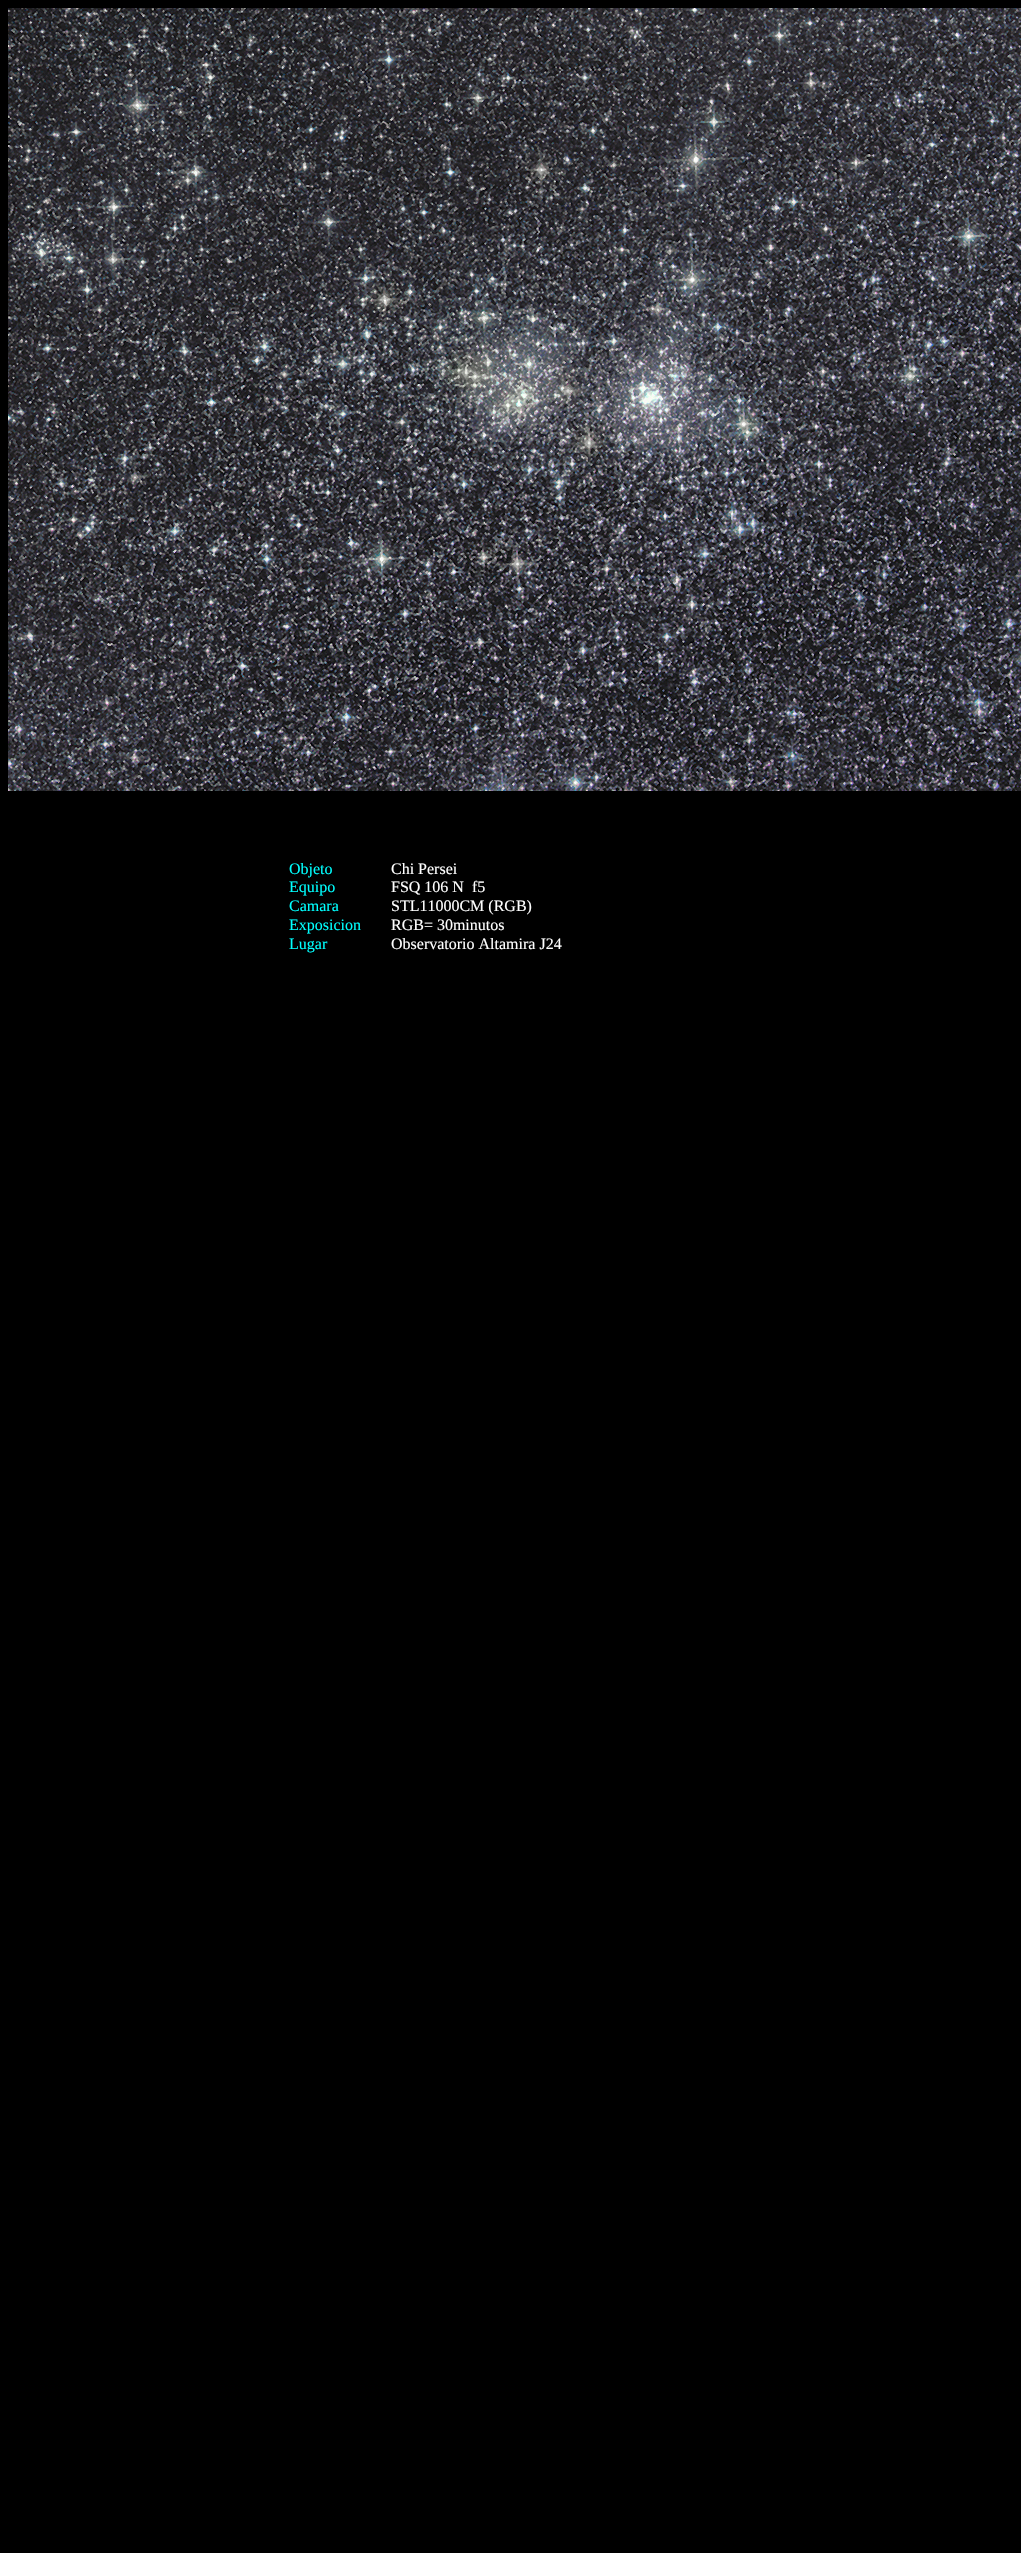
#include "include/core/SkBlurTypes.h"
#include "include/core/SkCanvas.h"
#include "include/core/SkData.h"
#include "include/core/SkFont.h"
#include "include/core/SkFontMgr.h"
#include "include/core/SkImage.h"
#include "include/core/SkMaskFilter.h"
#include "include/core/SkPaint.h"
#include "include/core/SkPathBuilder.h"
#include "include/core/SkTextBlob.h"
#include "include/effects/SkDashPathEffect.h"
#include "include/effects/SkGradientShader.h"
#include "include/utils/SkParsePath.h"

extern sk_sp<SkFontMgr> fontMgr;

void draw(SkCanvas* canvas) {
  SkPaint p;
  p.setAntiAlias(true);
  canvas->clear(SK_ColorBLACK);
  canvas->drawImageRect(SkImages::DeferredFromEncodedData(SkData::MakeFromFileName("images/1.png")), SkRect::MakeLTRB(8, 8, 1021, 791), SkSamplingOptions());
  SkFont font1(fontMgr->matchFamilyStyle("Liberation Serif", SkFontStyle::Normal()), 16);
  font1.setSubpixel(true);
  p.setColor(SkColorSetRGB(0, 255, 255));
  canvas->drawString("Objeto", 289, 874, font1, p);
  p.setColor(SK_ColorWHITE);
  canvas->drawString("Chi Persei", 391, 874, font1, p);
  p.setColor(SkColorSetRGB(0, 255, 255));
  canvas->drawString("Equipo", 289, 892, font1, p);
  p.setColor(SK_ColorWHITE);
  canvas->drawString("FSQ 106 N  f5", 391, 892, font1, p);
  p.setColor(SkColorSetRGB(0, 255, 255));
  canvas->drawString("Camara", 289, 911, font1, p);
  p.setColor(SK_ColorWHITE);
  canvas->drawString("STL11000CM (RGB)", 391, 911, font1, p);
  p.setColor(SkColorSetRGB(0, 255, 255));
  canvas->drawString("Exposicion", 289, 930, font1, p);
  p.setColor(SK_ColorWHITE);
  canvas->drawString("RGB= 30minutos", 391, 930, font1, p);
  p.setColor(SkColorSetRGB(0, 255, 255));
  canvas->drawString("Lugar", 289, 949, font1, p);
  p.setColor(SK_ColorWHITE);
  canvas->drawString("Observatorio Altamira J24", 391, 949, font1, p);
}
